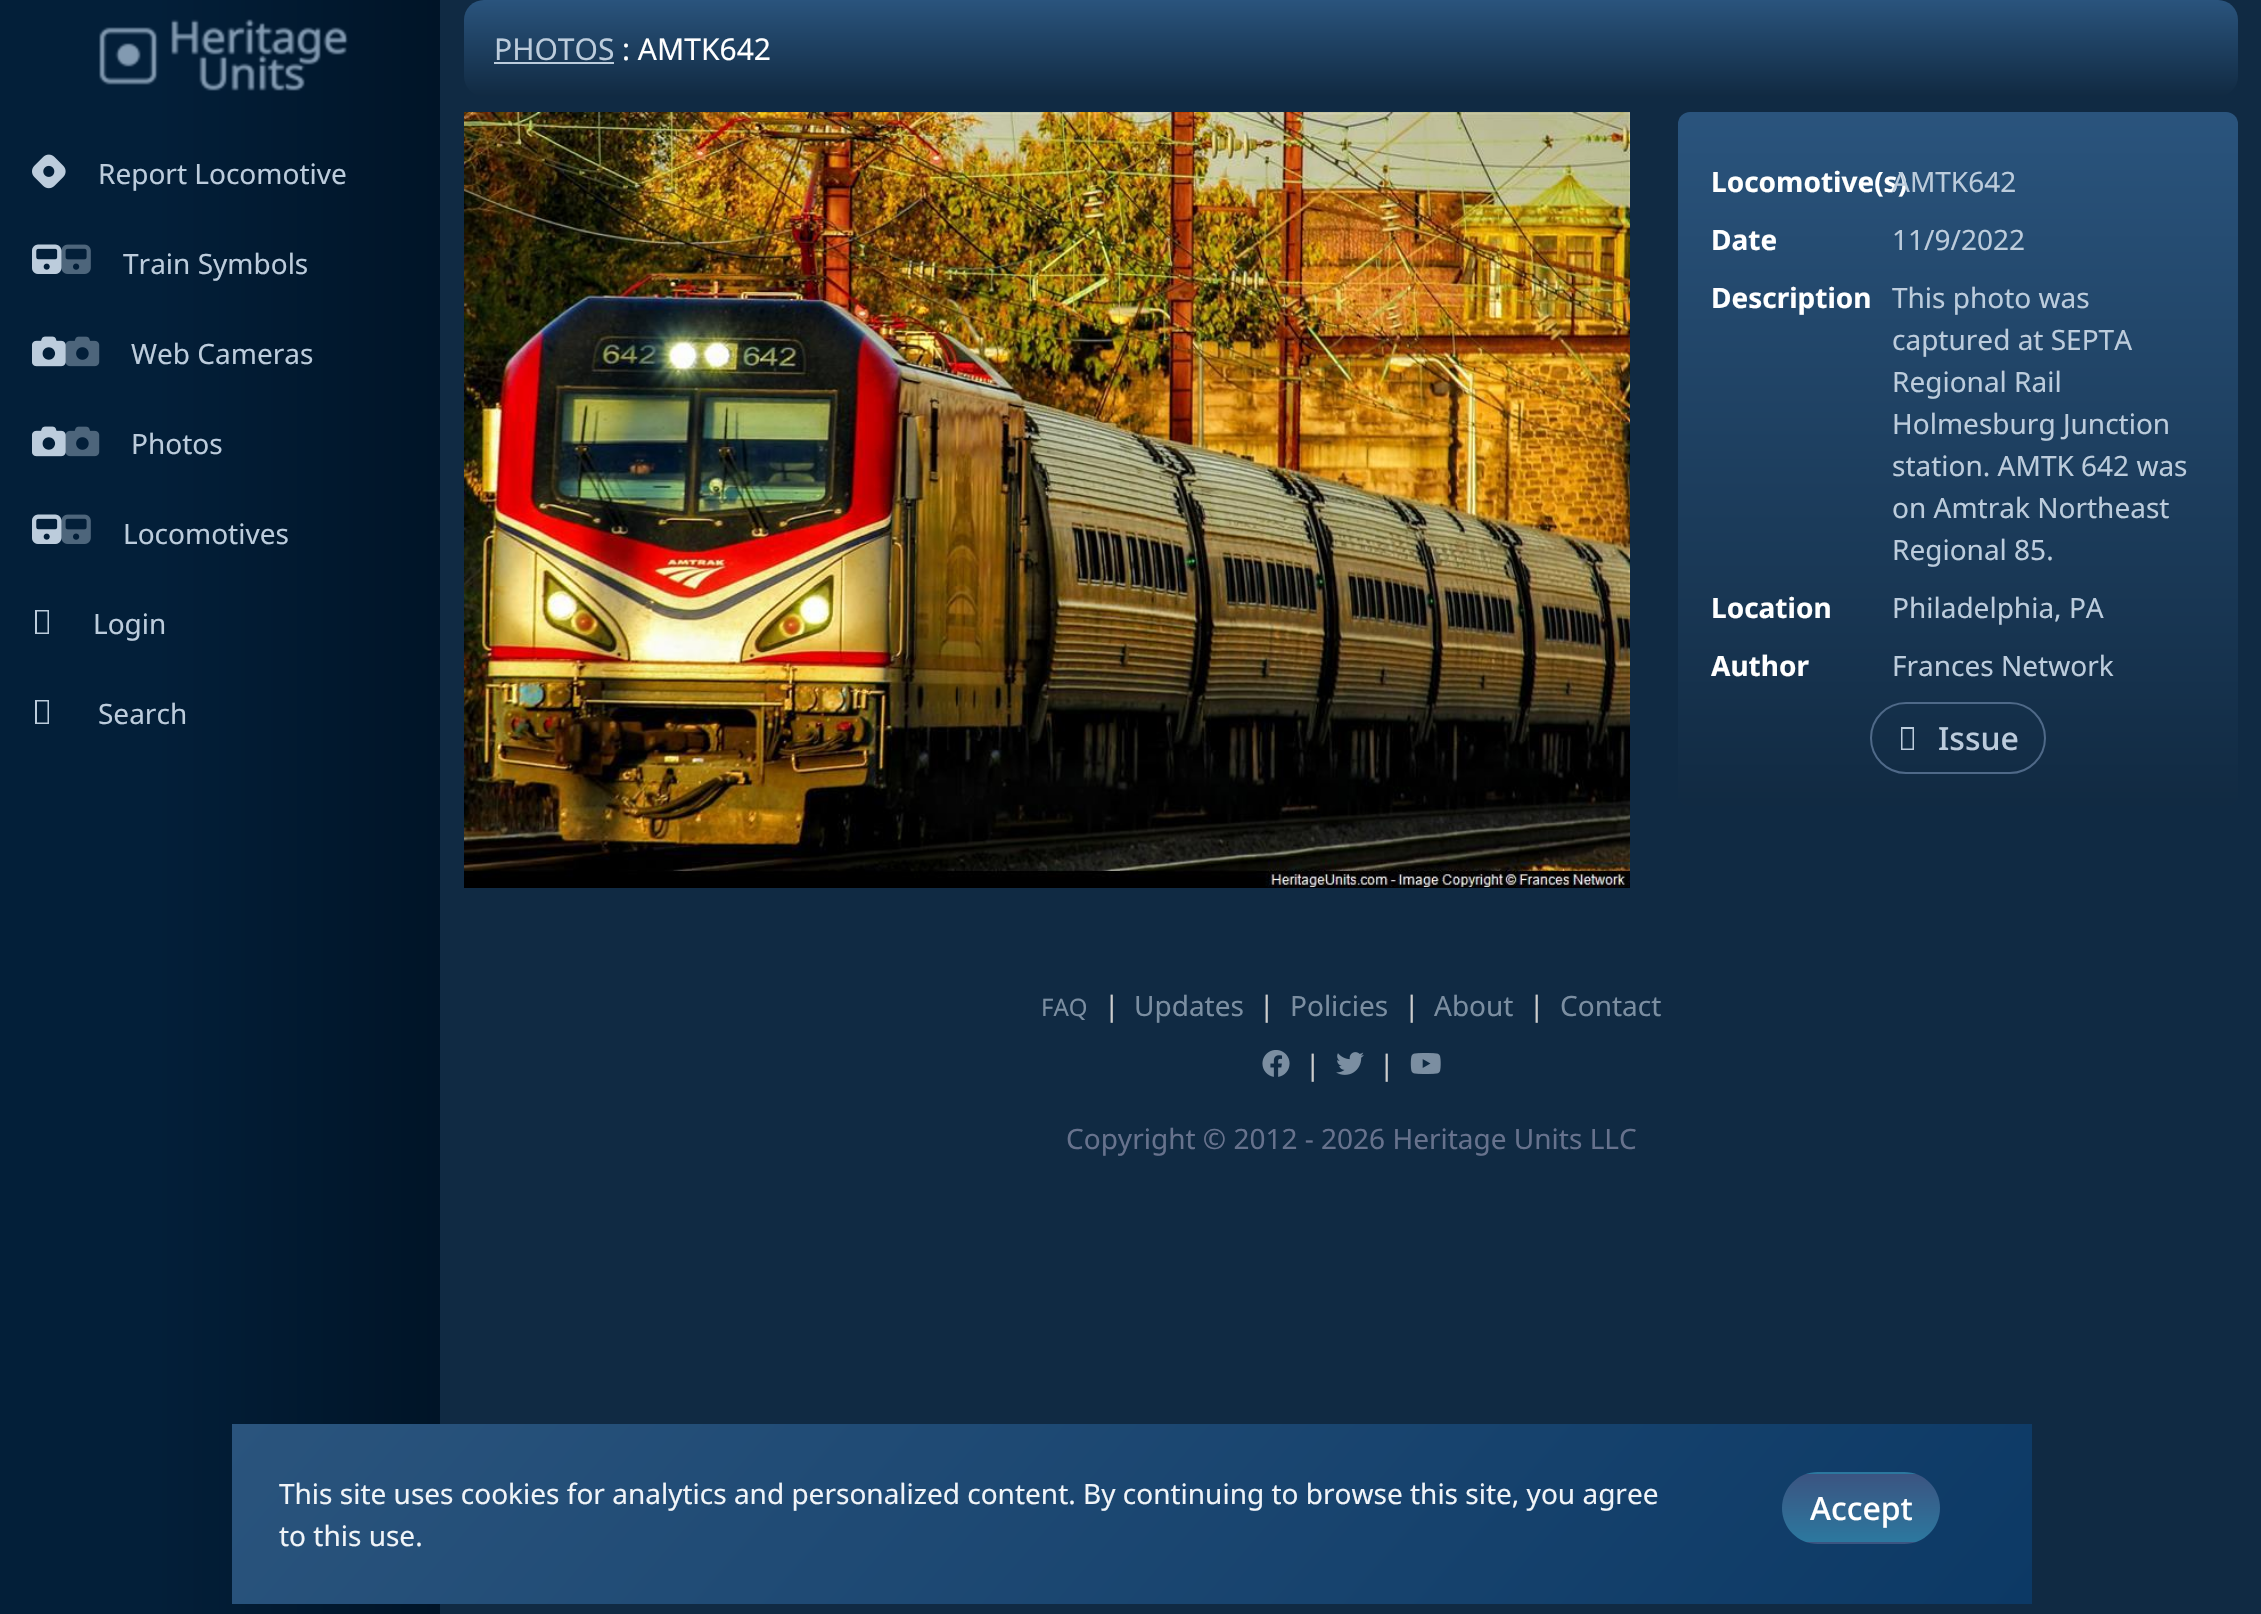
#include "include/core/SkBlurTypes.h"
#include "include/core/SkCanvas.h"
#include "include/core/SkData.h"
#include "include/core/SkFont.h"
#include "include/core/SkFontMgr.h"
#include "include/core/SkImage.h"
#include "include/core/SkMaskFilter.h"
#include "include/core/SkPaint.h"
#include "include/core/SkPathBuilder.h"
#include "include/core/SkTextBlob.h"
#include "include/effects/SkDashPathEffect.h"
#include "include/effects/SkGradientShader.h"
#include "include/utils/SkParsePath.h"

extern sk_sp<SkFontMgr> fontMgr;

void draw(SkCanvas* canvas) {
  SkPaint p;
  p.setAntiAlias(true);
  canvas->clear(SkColorSetRGB(16, 42, 67));
  {
    const SkColor colors[] = {SkColorSetRGB(3, 31, 57), SkColorSetRGB(0, 20, 39)};
    const float stops[] = {0.35f, 1};
    const SkPoint ends[] = {{0, 807}, {440, 807}};
    p.setShader(SkGradientShader::MakeLinear(ends, colors, stops, 2, SkTileMode::kClamp));
    p.setAlpha(255);
  }
  canvas->drawRect(SkRect::MakeLTRB(0, 0, 440, 1614), p);
  canvas->drawImageRect(SkImages::DeferredFromEncodedData(SkData::MakeFromFileName("images/1.png")), SkRect::MakeLTRB(99, 19, 348, 91), SkSamplingOptions());
  canvas->drawImageRect(SkImages::DeferredFromEncodedData(SkData::MakeFromFileName("images/2.png")), SkRect::MakeLTRB(32, 154, 66, 189), SkSamplingOptions());
  canvas->drawImageRect(SkImages::DeferredFromEncodedData(SkData::MakeFromFileName("images/3.png")), SkRect::MakeLTRB(32, 244, 62, 274), SkSamplingOptions());
  canvas->drawImageRect(SkImages::DeferredFromEncodedData(SkData::MakeFromFileName("images/4.png")), SkRect::MakeLTRB(32, 244, 91, 274), SkSamplingOptions());
  canvas->drawImageRect(SkImages::DeferredFromEncodedData(SkData::MakeFromFileName("images/5.png")), SkRect::MakeLTRB(32, 336, 66, 367), SkSamplingOptions());
  canvas->drawImageRect(SkImages::DeferredFromEncodedData(SkData::MakeFromFileName("images/6.png")), SkRect::MakeLTRB(32, 336, 100, 367), SkSamplingOptions());
  canvas->drawImageRect(SkImages::DeferredFromEncodedData(SkData::MakeFromFileName("images/5.png")), SkRect::MakeLTRB(32, 426, 66, 457), SkSamplingOptions());
  canvas->drawImageRect(SkImages::DeferredFromEncodedData(SkData::MakeFromFileName("images/6.png")), SkRect::MakeLTRB(32, 426, 100, 457), SkSamplingOptions());
  canvas->drawImageRect(SkImages::DeferredFromEncodedData(SkData::MakeFromFileName("images/3.png")), SkRect::MakeLTRB(32, 514, 62, 544), SkSamplingOptions());
  canvas->drawImageRect(SkImages::DeferredFromEncodedData(SkData::MakeFromFileName("images/4.png")), SkRect::MakeLTRB(32, 514, 91, 544), SkSamplingOptions());
  p.setShader(nullptr);
  p.setColor(SkColorSetRGB(188, 204, 220));
  canvas->drawPath(SkPathBuilder().moveTo(35, 634).lineTo(35, 610).lineTo(49, 610).lineTo(49, 634).close().moveTo(37, 632.5f).lineTo(47.5f, 632.5f).lineTo(47.5f, 611.5f).lineTo(37, 611.5f).close().detach(), p);
  canvas->drawPath(SkPathBuilder().moveTo(35, 724).lineTo(35, 700).lineTo(49, 700).lineTo(49, 724).close().moveTo(37, 722.5f).lineTo(47.5f, 722.5f).lineTo(47.5f, 701.5f).lineTo(37, 701.5f).close().detach(), p);
  {
    const SkColor colors[] = {SkColorSetRGB(42, 84, 125), SkColorSetRGB(17, 42, 66)};
    const float stops[] = {0, 1};
    const SkPoint ends[] = {{1351, 0}, {1351, 96}};
    p.setShader(SkGradientShader::MakeLinear(ends, colors, stops, 2, SkTileMode::kClamp));
    p.setAlpha(255);
  }
  canvas->drawRoundRect(SkRect::MakeLTRB(464, 0, 2238, 96), 20, 20, p);
  p.setShader(nullptr);
  p.setColor(SkColorSetRGB(188, 204, 220));
  canvas->drawRect(SkRect::MakeLTRB(494, 62, 614, 64), p);
  canvas->drawImageRect(SkImages::DeferredFromEncodedData(SkData::MakeFromFileName("images/7.png")), SkRect::MakeLTRB(464, 112, 1630, 888), SkSamplingOptions());
  {
    const SkColor colors[] = {SkColorSetRGB(42, 84, 125), SkColorSetRGB(17, 42, 66)};
    const float stops[] = {0, 1};
    const SkPoint ends[] = {{1958, 112}, {1958, 806}};
    p.setShader(SkGradientShader::MakeLinear(ends, colors, stops, 2, SkTileMode::kClamp));
    p.setAlpha(255);
  }
  canvas->drawRoundRect(SkRect::MakeLTRB(1678, 112, 2238, 806), 12, 12, p);
  p.setStyle(SkPaint::kStroke_Style);
  p.setStrokeWidth(2);
  p.setShader(nullptr);
  p.setColor(SkColorSetRGB(79, 105, 136));
  canvas->drawRoundRect(SkRect::MakeLTRB(1871, 703, 2045, 773), 35, 35, p);
  p.setStyle(SkPaint::kFill_Style);
  p.setColor(SkColorSetRGB(188, 204, 220));
  canvas->drawPath(SkPathBuilder().moveTo(1901, 750).lineTo(1901, 727).lineTo(1914, 727).lineTo(1914, 750).close().moveTo(1902.5f, 748.5f).lineTo(1912.5f, 748.5f).lineTo(1912.5f, 729).lineTo(1902.5f, 729).close().detach(), p);
  canvas->drawImageRect(SkImages::DeferredFromEncodedData(SkData::MakeFromFileName("images/8.png")), SkRect::MakeLTRB(1262, 1050, 1290, 1077), SkSamplingOptions());
  canvas->drawImageRect(SkImages::DeferredFromEncodedData(SkData::MakeFromFileName("images/9.png")), SkRect::MakeLTRB(1336, 1052, 1364, 1075), SkSamplingOptions());
  canvas->drawImageRect(SkImages::DeferredFromEncodedData(SkData::MakeFromFileName("images/10.png")), SkRect::MakeLTRB(1410, 1053, 1441, 1074), SkSamplingOptions());
  {
    const SkColor colors[] = {SkColorSetRGB(42, 84, 125), SkColorSetRGB(12, 57, 101)};
    const float stops[] = {0, 1};
    const SkPoint ends[] = {{575, 1030}, {1689, 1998}};
    p.setShader(SkGradientShader::MakeLinear(ends, colors, stops, 2, SkTileMode::kClamp));
    p.setAlpha(255);
  }
  canvas->drawRect(SkRect::MakeLTRB(232, 1424, 2032, 1604), p);
  canvas->save();
  canvas->clipPath(SkPathBuilder().moveTo(1818, 1472).lineTo(1904, 1472).cubicTo(1924, 1472, 1940, 1488, 1940, 1508).cubicTo(1940, 1528, 1924, 1544, 1904, 1544).lineTo(1818, 1544).cubicTo(1798, 1544, 1782, 1528, 1782, 1508).cubicTo(1782, 1488, 1798, 1472, 1818, 1472).close().detach(), true);
  {
    const SkColor colors[] = {SkColorSetRGB(44, 120, 159), SkColorSetRGB(59, 84, 129)};
    const float stops[] = {0, 1};
    const SkPoint ends[] = {{1861, 1474}, {1861, 1406}};
    p.setShader(SkGradientShader::MakeLinear(ends, colors, stops, 2, SkTileMode::kClamp));
    p.setAlpha(255);
  }
  canvas->drawRect(SkRect::MakeLTRB(1806, 1472, 1916, 1474), p);
  {
    const SkColor colors[] = {SkColorSetRGB(44, 120, 159), SkColorSetRGB(59, 84, 129)};
    const float stops[] = {0, 1};
    const SkPoint ends[] = {{1861, 1542}, {1861, 1474}};
    p.setShader(SkGradientShader::MakeLinear(ends, colors, stops, 2, SkTileMode::kClamp));
    p.setAlpha(255);
  }
  canvas->drawRect(SkRect::MakeLTRB(1782, 1474, 1940, 1542), p);
  {
    const SkColor colors[] = {SkColorSetRGB(44, 120, 159), SkColorSetRGB(59, 84, 129)};
    const float stops[] = {0, 1};
    const SkPoint ends[] = {{1861, 1610}, {1861, 1542}};
    p.setShader(SkGradientShader::MakeLinear(ends, colors, stops, 2, SkTileMode::kClamp));
    p.setAlpha(255);
  }
  canvas->drawRect(SkRect::MakeLTRB(1806, 1542, 1916, 1544), p);
  canvas->restore();
  SkFont font1(fontMgr->matchFamilyStyle("Noto Sans", SkFontStyle::Normal()), 28);
  font1.setSubpixel(true);
  p.setShader(nullptr);
  p.setColor(SkColorSetRGB(188, 204, 220));
  canvas->drawString("Report Locomotive", 98, 184, font1, p);
  canvas->drawString("Train Symbols", 123, 274, font1, p);
  canvas->drawString("Web Cameras", 131, 364, font1, p);
  canvas->drawString("Photos", 131, 454, font1, p);
  canvas->drawString("Locomotives", 123, 544, font1, p);
  canvas->drawString("Login", 93, 634, font1, p);
  canvas->drawString("Search", 98, 724, font1, p);
  SkFont font2(fontMgr->matchFamilyStyle("Noto Sans", SkFontStyle::Normal()), 30);
  font2.setSubpixel(true);
  canvas->drawString("PHOTOS", 494, 60, font2, p);
  p.setColor(SK_ColorWHITE);
  canvas->drawString(": AMTK642", 622, 60, font2, p);
  SkFont font3(fontMgr->matchFamilyStyle("Noto Sans", SkFontStyle::Bold()), 28);
  font3.setSubpixel(true);
  canvas->drawString("Locomotive(s)", 1711, 192, font3, p);
  p.setColor(SkColorSetRGB(188, 204, 220));
  canvas->drawString("AMTK642", 1892, 192, font1, p);
  p.setColor(SK_ColorWHITE);
  canvas->drawString("Date", 1711, 250, font3, p);
  p.setColor(SkColorSetRGB(188, 204, 220));
  canvas->drawString("11/9/2022", 1892, 250, font1, p);
  p.setColor(SK_ColorWHITE);
  canvas->drawString("Description", 1711, 308, font3, p);
  p.setColor(SkColorSetRGB(188, 204, 220));
  canvas->drawString("This photo was", 1892, 308, font1, p);
  canvas->drawString("captured at SEPTA", 1892, 350, font1, p);
  canvas->drawString("Regional Rail", 1892, 392, font1, p);
  canvas->drawString("Holmesburg Junction", 1892, 434, font1, p);
  canvas->drawString("station. AMTK 642 was", 1892, 476, font1, p);
  canvas->drawString("on Amtrak Northeast", 1892, 518, font1, p);
  canvas->drawString("Regional 85.", 1892, 560, font1, p);
  p.setColor(SK_ColorWHITE);
  canvas->drawString("Location", 1711, 618, font3, p);
  p.setColor(SkColorSetRGB(188, 204, 220));
  canvas->drawString("Philadelphia, PA", 1892, 618, font1, p);
  p.setColor(SK_ColorWHITE);
  canvas->drawString("Author", 1711, 676, font3, p);
  p.setColor(SkColorSetRGB(188, 204, 220));
  canvas->drawString("Frances Network", 1892, 676, font1, p);
  SkFont font4(fontMgr->matchFamilyStyle("Noto Sans", SkFontStyle(500, SkFontStyle::kNormal_Width, SkFontStyle::kUpright_Slant)), 32);
  font4.setSubpixel(true);
  canvas->drawString("Issue", 1938, 750, font4, p);
  SkFont font5(fontMgr->matchFamilyStyle("Noto Sans", SkFontStyle::Normal()), 24);
  font5.setSubpixel(true);
  p.setColor(SkColorSetRGB(123, 142, 161));
  canvas->drawString("FAQ", 1041, 1016, font5, p);
  p.setColor(SkColorSetRGB(204, 204, 204));
  canvas->drawString("|", 1104, 1016, font1, p);
  p.setColor(SkColorSetRGB(123, 142, 161));
  canvas->drawString("Updates", 1134, 1016, font1, p);
  p.setColor(SkColorSetRGB(204, 204, 204));
  canvas->drawString("|", 1259, 1016, font1, p);
  p.setColor(SkColorSetRGB(123, 142, 161));
  canvas->drawString("Policies", 1290, 1016, font1, p);
  p.setColor(SkColorSetRGB(204, 204, 204));
  canvas->drawString("|", 1404, 1016, font1, p);
  p.setColor(SkColorSetRGB(123, 142, 161));
  canvas->drawString("About", 1434, 1016, font1, p);
  p.setColor(SkColorSetRGB(204, 204, 204));
  canvas->drawString("|", 1529, 1016, font1, p);
  p.setColor(SkColorSetRGB(123, 142, 161));
  canvas->drawString("Contact", 1560, 1016, font1, p);
  p.setColor(SkColorSetRGB(204, 204, 204));
  canvas->drawString("|", 1305, 1075, font1, p);
  canvas->drawString("|", 1379, 1075, font1, p);
  p.setColor(SkColorSetRGB(103, 114, 141));
  canvas->drawString("Copyright © 2012 - 2026 Heritage Units LLC", 1066, 1149, font1, p);
  p.setColor(SkColorSetRGB(240, 244, 248));
  canvas->drawString("This site uses cookies for analytics and personalized content. By continuing to browse this site, you agree", 279, 1504, font1, p);
  canvas->drawString("to this use.", 279, 1546, font1, p);
  p.setColor(SK_ColorWHITE);
  canvas->drawString("Accept", 1810, 1520, font4, p);
}
